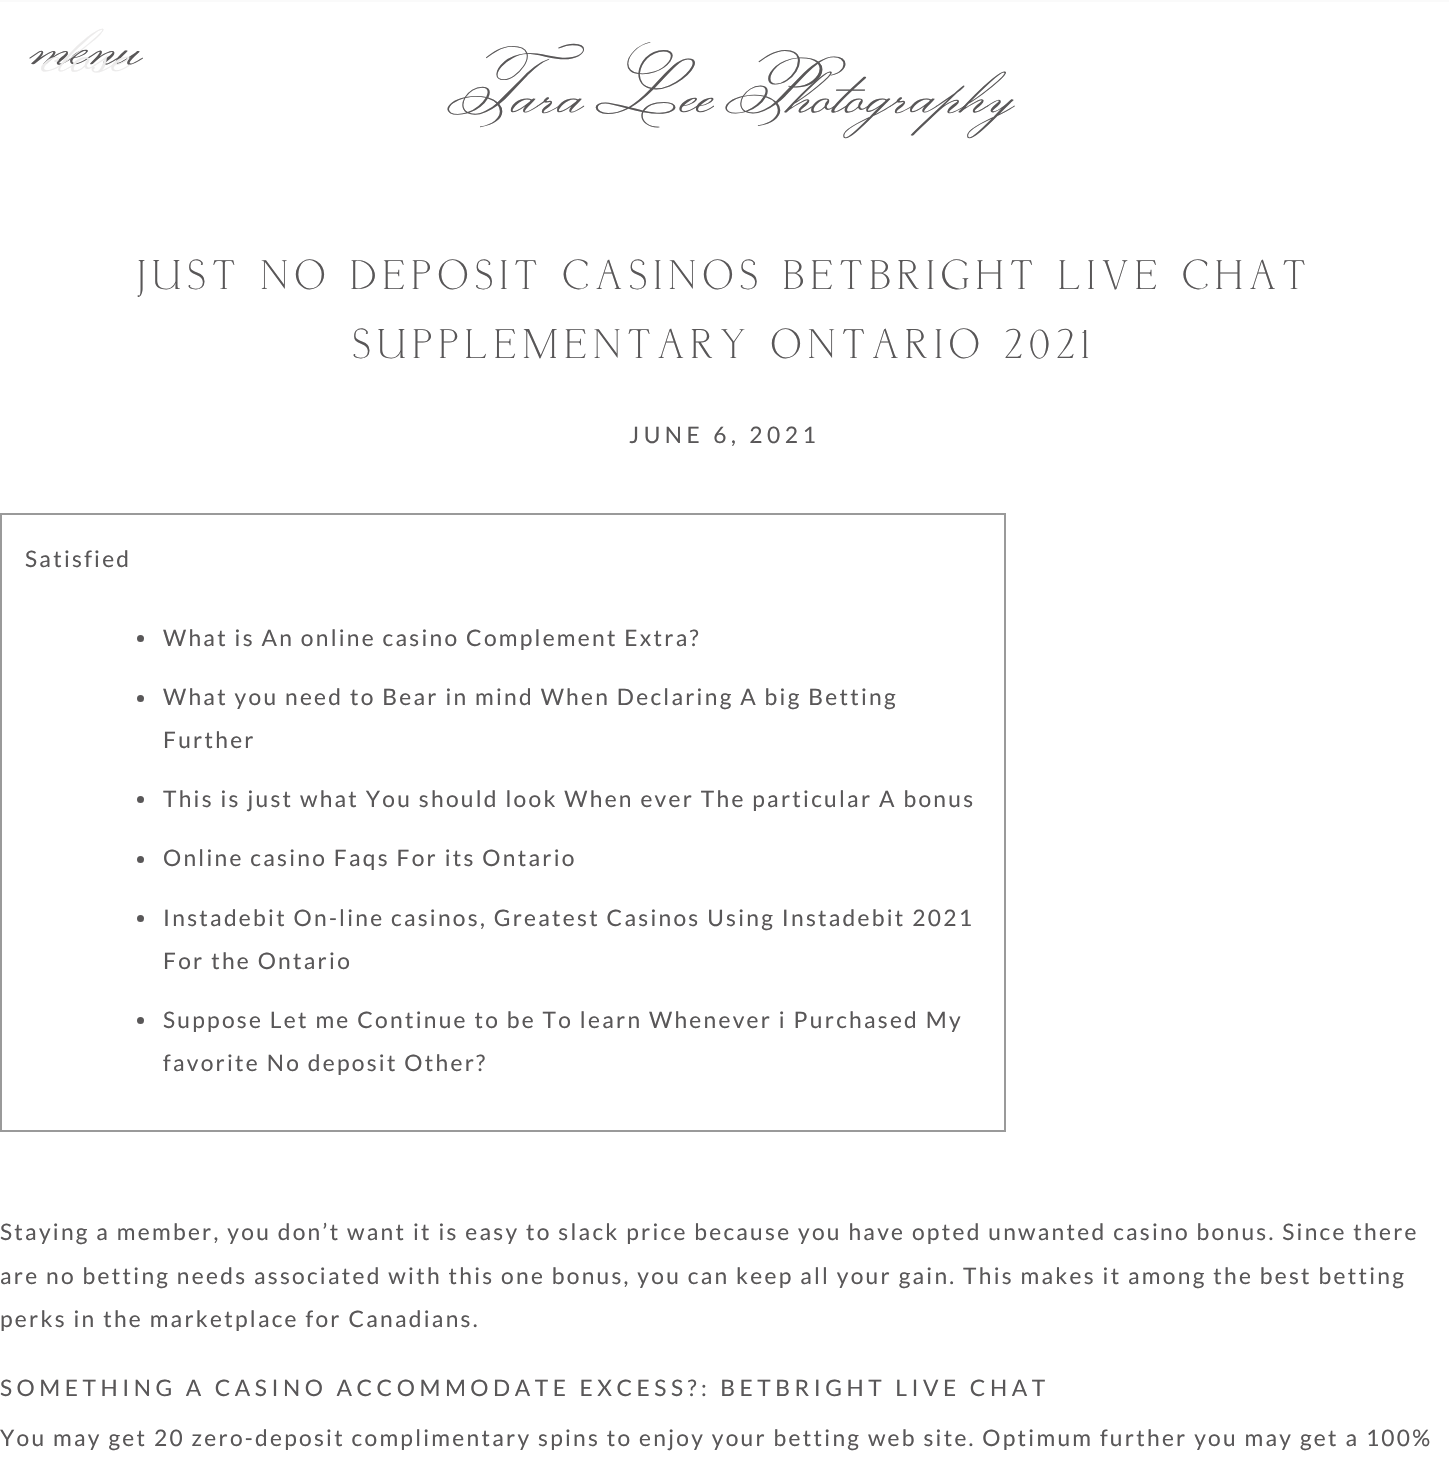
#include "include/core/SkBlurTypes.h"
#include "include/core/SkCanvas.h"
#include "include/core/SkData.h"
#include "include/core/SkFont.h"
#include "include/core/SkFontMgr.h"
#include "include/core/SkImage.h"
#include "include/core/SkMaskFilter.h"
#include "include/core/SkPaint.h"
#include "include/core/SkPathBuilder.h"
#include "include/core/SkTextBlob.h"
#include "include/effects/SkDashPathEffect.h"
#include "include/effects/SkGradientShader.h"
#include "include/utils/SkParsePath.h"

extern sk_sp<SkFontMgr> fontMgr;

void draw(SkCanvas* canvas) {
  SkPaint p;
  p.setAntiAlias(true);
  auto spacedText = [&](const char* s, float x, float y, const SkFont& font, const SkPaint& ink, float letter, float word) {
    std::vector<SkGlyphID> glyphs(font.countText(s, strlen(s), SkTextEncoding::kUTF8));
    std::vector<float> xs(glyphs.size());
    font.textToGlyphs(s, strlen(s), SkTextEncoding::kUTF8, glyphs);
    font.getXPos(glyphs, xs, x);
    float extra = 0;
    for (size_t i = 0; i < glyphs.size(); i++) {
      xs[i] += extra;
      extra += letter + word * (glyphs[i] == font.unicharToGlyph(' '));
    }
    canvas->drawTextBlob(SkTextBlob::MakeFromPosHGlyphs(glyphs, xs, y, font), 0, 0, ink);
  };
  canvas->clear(SK_ColorWHITE);
  p.setColor(SkColorSetRGB(250, 250, 250));
  canvas->drawRect(SkRect::MakeLTRB(0, 0, 1449, 2), p);
  p.setStyle(SkPaint::kStroke_Style);
  p.setStrokeWidth(2);
  p.setColor(SkColorSetRGB(154, 154, 154));
  canvas->drawRect(SkRect::MakeLTRB(1, 514, 1005, 1131), p);
  p.setStyle(SkPaint::kFill_Style);
  p.setColor(SkColorSetRGB(89, 87, 88));
  canvas->drawCircle(140.5f, 638.5f, 3.5f, p);
  canvas->drawCircle(140.5f, 698.5f, 3.5f, p);
  canvas->drawCircle(140.5f, 799.5f, 3.5f, p);
  canvas->drawCircle(140.5f, 859.5f, 3.5f, p);
  canvas->drawCircle(140.5f, 918.5f, 3.5f, p);
  canvas->drawCircle(140.5f, 1020.5f, 3.5f, p);
  SkFont font1(fontMgr->matchFamilyStyle("Monsieur La Doulaise", SkFontStyle::Normal()), 70);
  font1.setSubpixel(true);
  canvas->drawString("menu", 31, 63, font1, p);
  p.setColor(SkColorSetRGB(236, 235, 235));
  canvas->drawString("close", 44, 70, font1, p);
  SkFont font2(fontMgr->matchFamilyStyle("Monsieur La Doulaise", SkFontStyle::Normal()), 69.25f);
  font2.setSubpixel(true);
  p.setColor(SkColorSetRGB(89, 87, 88));
  canvas->drawString("Tara Lee Photography", 448, 111, font2, p);
  SkFont font3(fontMgr->matchFamilyStyle("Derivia", SkFontStyle::Normal()), 38.5f);
  font3.setSubpixel(true);
  spacedText("JUST NO DEPOSIT CASINOS BETBRIGHT LIVE CHAT", 137, 289, font3, p, 7.7f, 0);
  spacedText("SUPPLEMENTARY ONTARIO 2021", 353, 358, font3, p, 7.7f, 0);
  SkFont font4(fontMgr->matchFamilyStyle("Lato", SkFontStyle::Normal()), 22.75f);
  font4.setSubpixel(true);
  spacedText("JUNE 6, 2021", 629, 443, font4, p, 4.55f, 0);
  spacedText("Satisfied", 25, 567, font4, p, 2.27f, 0);
  spacedText("What is An online casino Complement Extra?", 163, 646, font4, p, 2.27f, 0);
  spacedText("What you need to Bear in mind When Declaring A big Betting", 163, 705, font4, p, 2.27f, 0);
  spacedText("Further", 163, 748, font4, p, 2.27f, 0);
  spacedText("This is just what You should look When ever The particular A bonus", 163, 807, font4, p, 2.27f, 0);
  spacedText("Online casino Faqs For its Ontario", 163, 866, font4, p, 2.27f, 0);
  spacedText("Instadebit On-line casinos, Greatest Casinos Using Instadebit 2021", 163, 926, font4, p, 2.27f, 0);
  spacedText("For the Ontario", 163, 969, font4, p, 2.27f, 0);
  spacedText("Suppose Let me Continue to be To learn Whenever i Purchased My", 163, 1028, font4, p, 2.27f, 0);
  spacedText("favorite No deposit Other?", 163, 1071, font4, p, 2.27f, 0);
  spacedText("Staying a member, you don’t want it is easy to slack price because you have opted unwanted casino bonus. Since there", 0, 1240, font4, p, 2.27f, 0);
  spacedText("are no betting needs associated with this one bonus, you can keep all your gain. This makes it among the best betting", 0, 1284, font4, p, 2.27f, 0);
  spacedText("perks in the marketplace for Canadians.", 0, 1327, font4, p, 2.27f, 0);
  spacedText("SOMETHING A CASINO ACCOMMODATE EXCESS?: BETBRIGHT LIVE CHAT", 0, 1396, font4, p, 4.55f, 0);
  spacedText("You may get 20 zero-deposit complimentary spins to enjoy your betting web site. Optimum further you may get a 100%", 0, 1446, font4, p, 2.27f, 0);
}
